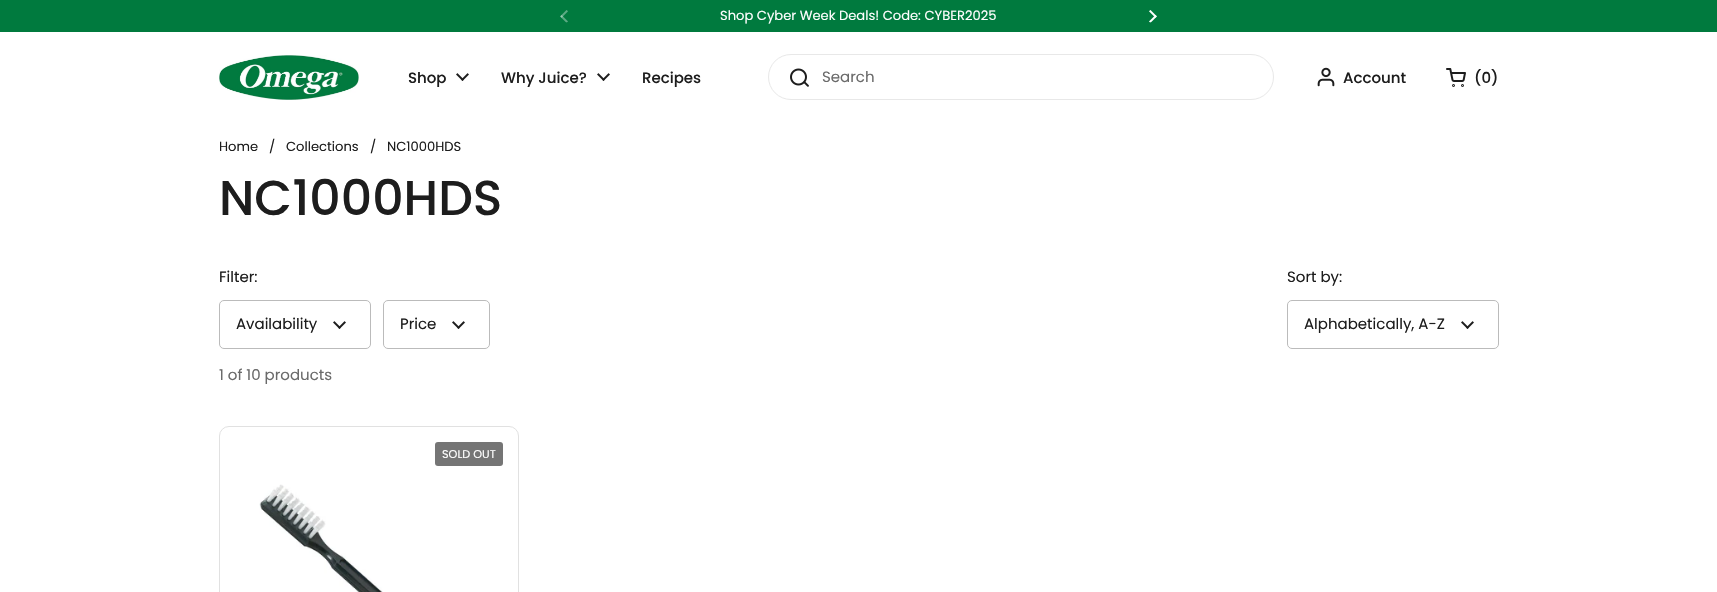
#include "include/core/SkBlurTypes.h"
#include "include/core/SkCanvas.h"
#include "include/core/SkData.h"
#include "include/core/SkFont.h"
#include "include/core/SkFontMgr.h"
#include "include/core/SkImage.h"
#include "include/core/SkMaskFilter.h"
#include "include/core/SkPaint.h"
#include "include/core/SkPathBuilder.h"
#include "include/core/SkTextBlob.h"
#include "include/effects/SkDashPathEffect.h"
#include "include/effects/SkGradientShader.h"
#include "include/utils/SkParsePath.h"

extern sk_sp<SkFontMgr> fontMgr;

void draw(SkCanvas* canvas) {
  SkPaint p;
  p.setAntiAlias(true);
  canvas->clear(SK_ColorWHITE);
  p.setColor(SkColorSetRGB(0, 122, 62));
  canvas->drawRect(SkRect::MakeLTRB(0, 0, 1717, 32), p);
  canvas->drawImageRect(SkImages::DeferredFromEncodedData(SkData::MakeFromFileName("images/1.png")), SkRect::MakeLTRB(560, 10, 568, 23), SkSamplingOptions());
  canvas->drawImageRect(SkImages::DeferredFromEncodedData(SkData::MakeFromFileName("images/2.png")), SkRect::MakeLTRB(1149, 10, 1157, 23), SkSamplingOptions());
  canvas->drawImageRect(SkImages::DeferredFromEncodedData(SkData::MakeFromFileName("images/3.png")), SkRect::MakeLTRB(219, 55, 359, 100), SkSamplingOptions());
  canvas->drawImageRect(SkImages::DeferredFromEncodedData(SkData::MakeFromFileName("images/4.png")), SkRect::MakeLTRB(456, 73, 469, 81), SkSamplingOptions());
  canvas->drawImageRect(SkImages::DeferredFromEncodedData(SkData::MakeFromFileName("images/4.png")), SkRect::MakeLTRB(597, 73, 610, 81), SkSamplingOptions());
  p.setStyle(SkPaint::kStroke_Style);
  p.setStrokeWidth(1);
  p.setColor(SkColorSetRGB(232, 232, 232));
  canvas->drawRoundRect(SkRect::MakeLTRB(768.5f, 54.5f, 1273.5f, 99.5f), 22.5f, 22.5f, p);
  canvas->drawImageRect(SkImages::DeferredFromEncodedData(SkData::MakeFromFileName("images/5.png")), SkRect::MakeLTRB(790, 68, 809, 87), SkSamplingOptions());
  canvas->drawImageRect(SkImages::DeferredFromEncodedData(SkData::MakeFromFileName("images/6.png")), SkRect::MakeLTRB(1317, 67, 1335, 87), SkSamplingOptions());
  canvas->drawImageRect(SkImages::DeferredFromEncodedData(SkData::MakeFromFileName("images/7.png")), SkRect::MakeLTRB(1446, 68, 1466, 87), SkSamplingOptions());
  canvas->drawImageRect(SkImages::DeferredFromEncodedData(SkData::MakeFromFileName("images/4.png")), SkRect::MakeLTRB(333, 321, 346, 329), SkSamplingOptions());
  p.setColor(SkColorSetRGB(187, 187, 187));
  canvas->drawRoundRect(SkRect::MakeLTRB(219.5f, 300.5f, 370.5f, 348.5f), 4.5f, 4.5f, p);
  canvas->drawImageRect(SkImages::DeferredFromEncodedData(SkData::MakeFromFileName("images/4.png")), SkRect::MakeLTRB(452, 321, 465, 329), SkSamplingOptions());
  canvas->drawRoundRect(SkRect::MakeLTRB(383.5f, 300.5f, 489.5f, 348.5f), 4.5f, 4.5f, p);
  canvas->drawImageRect(SkImages::DeferredFromEncodedData(SkData::MakeFromFileName("images/4.png")), SkRect::MakeLTRB(1461, 321, 1474, 329), SkSamplingOptions());
  canvas->drawRoundRect(SkRect::MakeLTRB(1287.5f, 300.5f, 1498.5f, 348.5f), 4.5f, 4.5f, p);
  p.setColor(SkColorSetRGB(225, 225, 225));
  canvas->drawRoundRect(SkRect::MakeLTRB(219.5f, 426.5f, 518.5f, 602.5f), 9.5f, 9.5f, p);
  p.setStyle(SkPaint::kFill_Style);
  p.setColor(SkColorSetRGB(117, 117, 117));
  canvas->drawRoundRect(SkRect::MakeLTRB(435, 442, 503, 466), 3, 3, p);
  canvas->drawImageRect(SkImages::DeferredFromEncodedData(SkData::MakeFromFileName("images/8.png")), SkRect::MakeLTRB(259, 484, 383, 592), SkSamplingOptions());
  SkFont font1(fontMgr->matchFamilyStyle("Poppins", SkFontStyle::Normal()), 13.1f);
  font1.setSubpixel(true);
  p.setColor(SK_ColorWHITE);
  canvas->drawString("Shop Cyber Week Deals! Code: CYBER2025", 720, 20, font1, p);
  SkFont font2(fontMgr->matchFamilyStyle("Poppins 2", SkFontStyle(500, SkFontStyle::kNormal_Width, SkFontStyle::kUpright_Slant)), 15);
  font2.setSubpixel(true);
  p.setColor(SkColorSetRGB(29, 29, 29));
  canvas->drawString("Shop", 408, 83, font2, p);
  canvas->drawString("Why Juice?", 501, 83, font2, p);
  canvas->drawString("Recipes", 642, 83, font2, p);
  SkFont font3(fontMgr->matchFamilyStyle("Poppins", SkFontStyle::Normal()), 15);
  font3.setSubpixel(true);
  p.setColor(SkColorSetRGB(106, 106, 106));
  canvas->drawString("Search", 822, 82, font3, p);
  p.setColor(SkColorSetRGB(29, 29, 29));
  canvas->drawString("Account", 1343, 83, font2, p);
  canvas->drawString("(0)", 1474, 83, font2, p);
  canvas->drawString("Home", 219, 151, font1, p);
  canvas->drawString("/", 269, 151, font1, p);
  canvas->drawString("Collections", 286, 151, font1, p);
  canvas->drawString("/", 370, 151, font1, p);
  canvas->drawString("NC1000HDS", 387, 151, font1, p);
  SkFont font4(fontMgr->matchFamilyStyle("Poppins", SkFontStyle(500, SkFontStyle::kNormal_Width, SkFontStyle::kUpright_Slant)), 49);
  font4.setSubpixel(true);
  canvas->drawString("NC1000HDS", 219, 215, font4, p);
  canvas->drawString("Filter:", 219, 282, font3, p);
  canvas->drawString("Availability", 236, 329, font3, p);
  canvas->drawString("Price", 400, 329, font3, p);
  canvas->drawString("Sort by:", 1287, 282, font3, p);
  canvas->drawString("Alphabetically, A-Z", 1304, 329, font3, p);
  p.setColor(SkColorSetRGB(106, 106, 106));
  canvas->drawString("1 of 10 products", 219, 380, font3, p);
  SkFont font5(fontMgr->matchFamilyStyle("Poppins", SkFontStyle::Normal()), 11.25f);
  font5.setSubpixel(true);
  p.setColor(SK_ColorWHITE);
  canvas->drawString("SOLD OUT", 442, 458, font5, p);
}
